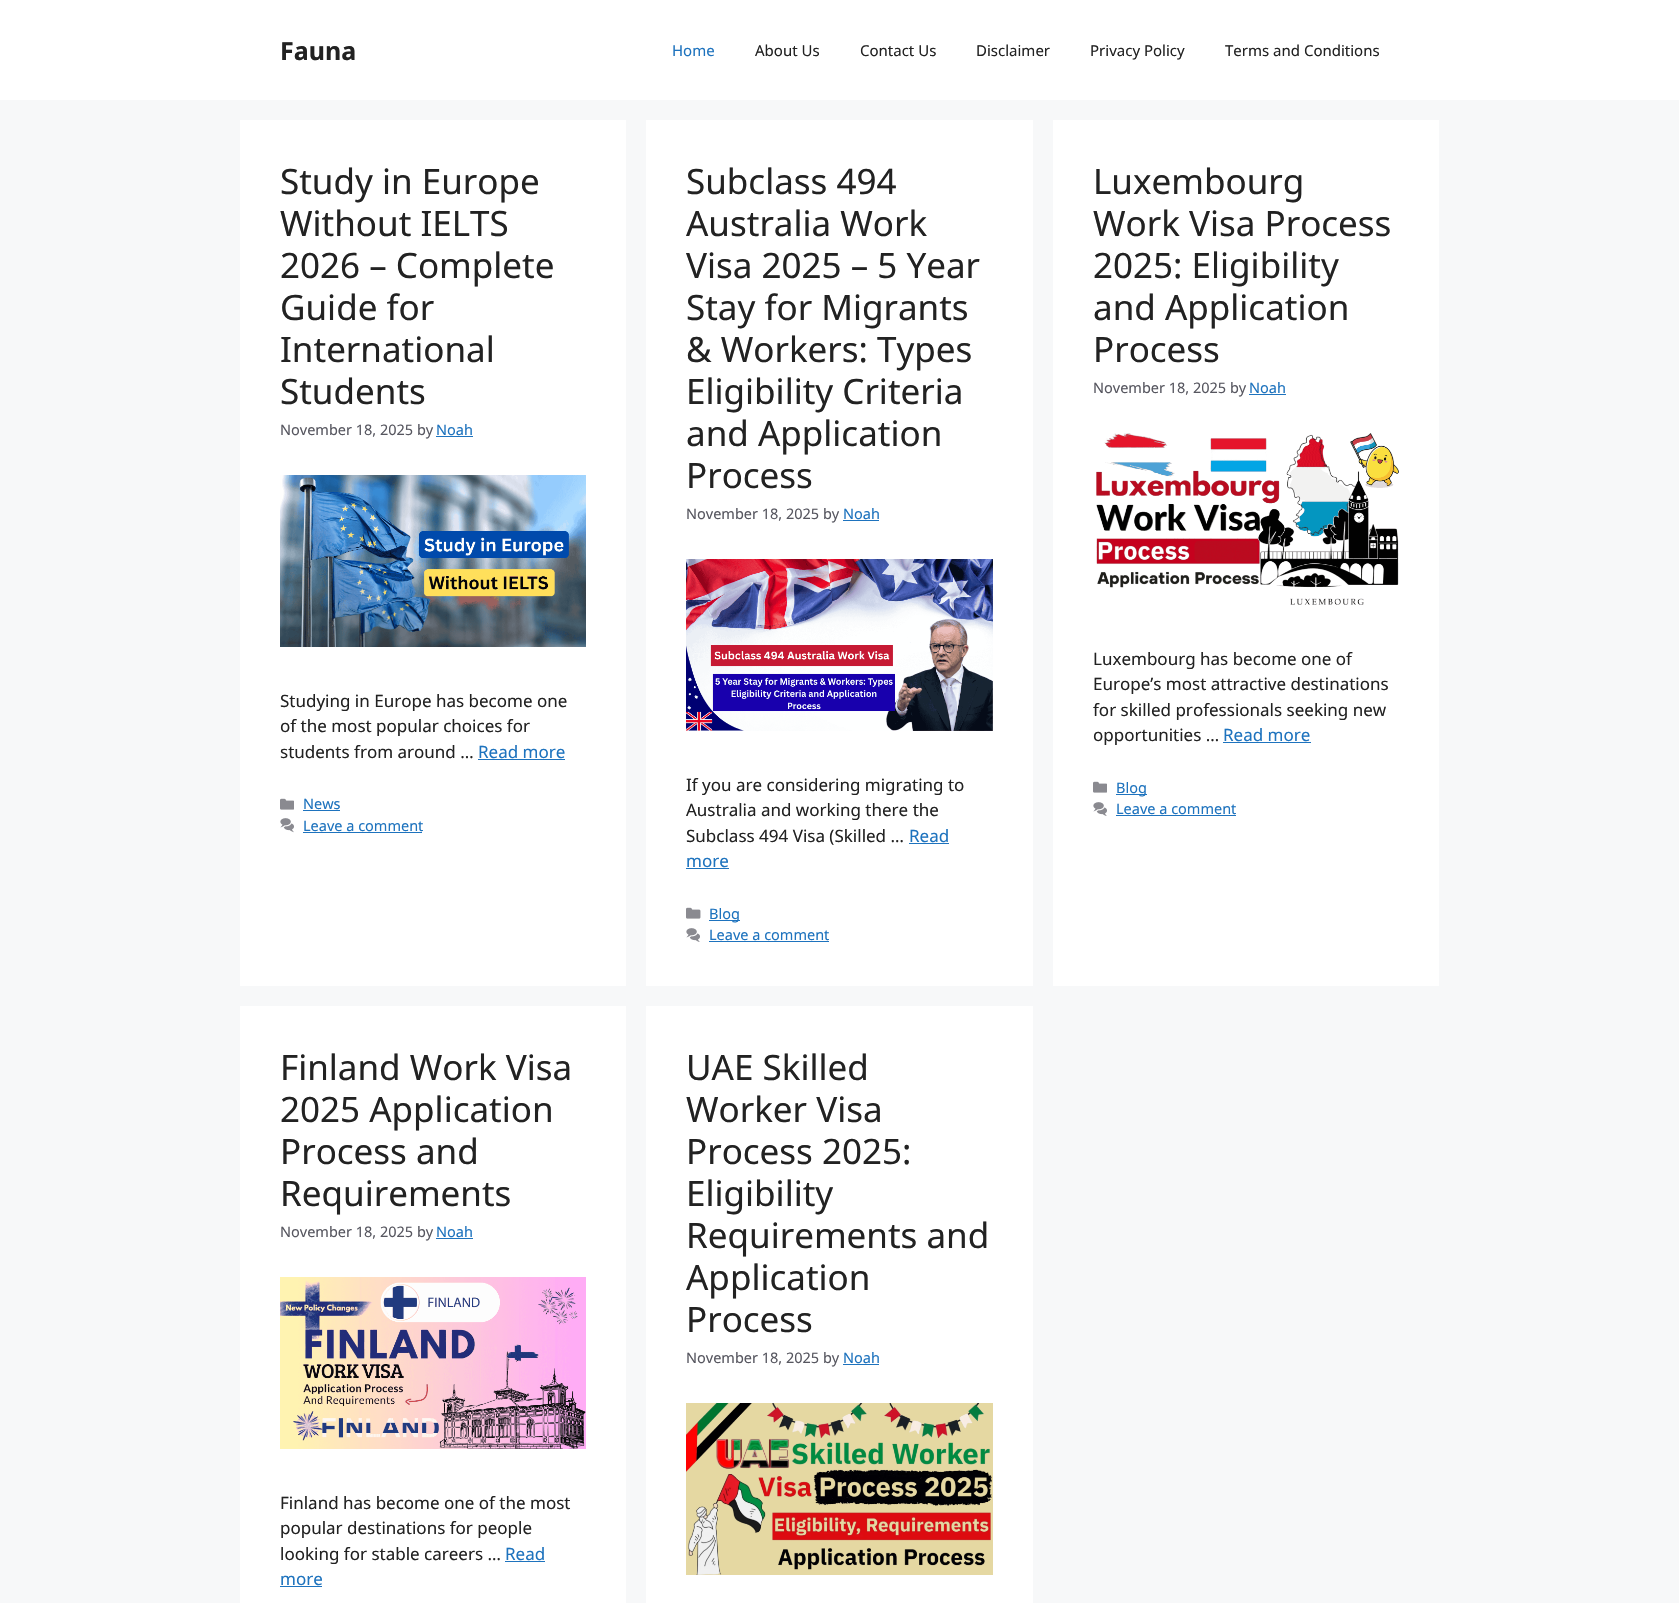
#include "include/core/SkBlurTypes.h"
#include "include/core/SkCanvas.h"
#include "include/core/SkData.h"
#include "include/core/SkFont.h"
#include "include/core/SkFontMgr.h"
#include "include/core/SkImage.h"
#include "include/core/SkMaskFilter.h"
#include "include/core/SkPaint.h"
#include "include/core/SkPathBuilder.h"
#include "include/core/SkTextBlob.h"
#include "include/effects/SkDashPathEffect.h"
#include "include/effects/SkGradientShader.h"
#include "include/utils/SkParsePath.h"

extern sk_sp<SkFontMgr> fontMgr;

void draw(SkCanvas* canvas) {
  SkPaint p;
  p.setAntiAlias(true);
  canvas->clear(SkColorSetRGB(247, 248, 249));
  p.setColor(SK_ColorWHITE);
  canvas->drawRect(SkRect::MakeLTRB(0, 0, 1679, 100), p);
  canvas->drawRect(SkRect::MakeLTRB(240, 120, 626, 986), p);
  p.setColor(SkColorSetRGB(30, 115, 190));
  canvas->drawRect(SkRect::MakeLTRB(436, 436, 473, 437), p);
  canvas->drawImageRect(SkImages::DeferredFromEncodedData(SkData::MakeFromFileName("images/1.png")), SkRect::MakeLTRB(280, 475, 586, 647), SkSamplingOptions());
  canvas->drawRect(SkRect::MakeLTRB(478, 759, 565, 760), p);
  canvas->drawImageRect(SkImages::DeferredFromEncodedData(SkData::MakeFromFileName("images/2.png")), SkRect::MakeLTRB(280, 798, 294, 810), SkSamplingOptions());
  canvas->drawRect(SkRect::MakeLTRB(303, 810, 340, 811), p);
  canvas->drawImageRect(SkImages::DeferredFromEncodedData(SkData::MakeFromFileName("images/3.png")), SkRect::MakeLTRB(280, 818, 294, 833), SkSamplingOptions());
  canvas->drawRect(SkRect::MakeLTRB(303, 832, 422, 833), p);
  p.setColor(SK_ColorWHITE);
  canvas->drawRect(SkRect::MakeLTRB(646, 120, 1033, 986), p);
  p.setColor(SkColorSetRGB(30, 115, 190));
  canvas->drawRect(SkRect::MakeLTRB(843, 520, 879, 521), p);
  canvas->drawImageRect(SkImages::DeferredFromEncodedData(SkData::MakeFromFileName("images/4.png")), SkRect::MakeLTRB(686, 559, 993, 731), SkSamplingOptions());
  canvas->drawRect(SkRect::MakeLTRB(909, 843, 949, 844), p);
  canvas->drawRect(SkRect::MakeLTRB(686, 868, 729, 869), p);
  canvas->drawImageRect(SkImages::DeferredFromEncodedData(SkData::MakeFromFileName("images/5.png")), SkRect::MakeLTRB(686, 907, 701, 919), SkSamplingOptions());
  canvas->drawRect(SkRect::MakeLTRB(709, 920, 740, 921), p);
  canvas->drawImageRect(SkImages::DeferredFromEncodedData(SkData::MakeFromFileName("images/6.png")), SkRect::MakeLTRB(686, 928, 700, 942), SkSamplingOptions());
  canvas->drawRect(SkRect::MakeLTRB(709, 941, 829, 942), p);
  p.setColor(SK_ColorWHITE);
  canvas->drawRect(SkRect::MakeLTRB(1053, 120, 1439, 986), p);
  p.setColor(SkColorSetRGB(30, 115, 190));
  canvas->drawRect(SkRect::MakeLTRB(1249, 394, 1286, 395), p);
  canvas->drawImageRect(SkImages::DeferredFromEncodedData(SkData::MakeFromFileName("images/7.png")), SkRect::MakeLTRB(1096, 433, 1399, 605), SkSamplingOptions());
  canvas->drawRect(SkRect::MakeLTRB(1223, 742, 1311, 743), p);
  canvas->drawImageRect(SkImages::DeferredFromEncodedData(SkData::MakeFromFileName("images/2.png")), SkRect::MakeLTRB(1093, 781, 1107, 793), SkSamplingOptions());
  canvas->drawRect(SkRect::MakeLTRB(1116, 794, 1147, 795), p);
  canvas->drawImageRect(SkImages::DeferredFromEncodedData(SkData::MakeFromFileName("images/6.png")), SkRect::MakeLTRB(1093, 802, 1107, 816), SkSamplingOptions());
  canvas->drawRect(SkRect::MakeLTRB(1116, 815, 1236, 816), p);
  p.setColor(SK_ColorWHITE);
  canvas->drawRect(SkRect::MakeLTRB(240, 1006, 626, 1603), p);
  p.setColor(SkColorSetRGB(30, 115, 190));
  canvas->drawRect(SkRect::MakeLTRB(436, 1238, 473, 1239), p);
  canvas->drawImageRect(SkImages::DeferredFromEncodedData(SkData::MakeFromFileName("images/8.png")), SkRect::MakeLTRB(280, 1277, 586, 1449), SkSamplingOptions());
  canvas->drawRect(SkRect::MakeLTRB(505, 1561, 545, 1562), p);
  canvas->drawRect(SkRect::MakeLTRB(280, 1586, 322, 1587), p);
  p.setColor(SK_ColorWHITE);
  canvas->drawRect(SkRect::MakeLTRB(646, 1006, 1033, 1603), p);
  p.setColor(SkColorSetRGB(30, 115, 190));
  canvas->drawRect(SkRect::MakeLTRB(843, 1364, 879, 1365), p);
  canvas->drawImageRect(SkImages::DeferredFromEncodedData(SkData::MakeFromFileName("images/9.png")), SkRect::MakeLTRB(686, 1403, 993, 1575), SkSamplingOptions());
  SkFont font1(fontMgr->matchFamilyStyle("Noto Sans", SkFontStyle::Bold()), 25);
  font1.setSubpixel(true);
  p.setColor(SkColorSetRGB(34, 34, 34));
  canvas->drawString("Fauna", 280, 60, font1, p);
  SkFont font2(fontMgr->matchFamilyStyle("Noto Sans", SkFontStyle::Normal()), 15);
  font2.setSubpixel(true);
  p.setColor(SkColorSetRGB(30, 115, 190));
  canvas->drawString("Home", 672, 56, font2, p);
  p.setColor(SkColorSetRGB(34, 34, 34));
  canvas->drawString("About Us", 755, 56, font2, p);
  canvas->drawString("Contact Us", 860, 56, font2, p);
  canvas->drawString("Disclaimer", 976, 56, font2, p);
  canvas->drawString("Privacy Policy", 1090, 56, font2, p);
  canvas->drawString("Terms and Conditions", 1225, 56, font2, p);
  SkFont font3(fontMgr->matchFamilyStyle("Noto Sans", SkFontStyle::Normal()), 35);
  font3.setSubpixel(true);
  canvas->drawString("Study in Europe", 280, 194, font3, p);
  canvas->drawString("Without IELTS", 280, 236, font3, p);
  canvas->drawString("2026 – Complete", 280, 278, font3, p);
  canvas->drawString("Guide for", 280, 320, font3, p);
  canvas->drawString("International", 280, 362, font3, p);
  canvas->drawString("Students", 280, 404, font3, p);
  SkFont font4(fontMgr->matchFamilyStyle("Noto Sans", SkFontStyle::Normal()), 14.5f);
  font4.setSubpixel(true);
  p.setColor(SkColorSetRGB(87, 87, 96));
  canvas->drawString("November 18, 2025 by", 280, 435, font4, p);
  p.setColor(SkColorSetRGB(30, 115, 190));
  canvas->drawString("Noah", 436, 435, font4, p);
  SkFont font5(fontMgr->matchFamilyStyle("Noto Sans", SkFontStyle::Normal()), 17);
  font5.setSubpixel(true);
  p.setColor(SkColorSetRGB(34, 34, 34));
  canvas->drawString("Studying in Europe has become one", 280, 707, font5, p);
  canvas->drawString("of the most popular choices for", 280, 732, font5, p);
  canvas->drawString("students from around …", 280, 758, font5, p);
  p.setColor(SkColorSetRGB(30, 115, 190));
  canvas->drawString("Read more", 478, 758, font5, p);
  canvas->drawString("News", 303, 809, font4, p);
  canvas->drawString("Leave a comment", 303, 831, font4, p);
  p.setColor(SkColorSetRGB(34, 34, 34));
  canvas->drawString("Subclass 494", 686, 194, font3, p);
  canvas->drawString("Australia Work", 686, 236, font3, p);
  canvas->drawString("Visa 2025 – 5 Year", 686, 278, font3, p);
  canvas->drawString("Stay for Migrants", 686, 320, font3, p);
  canvas->drawString("& Workers: Types", 686, 362, font3, p);
  canvas->drawString("Eligibility Criteria", 686, 404, font3, p);
  canvas->drawString("and Application", 686, 446, font3, p);
  canvas->drawString("Process", 686, 488, font3, p);
  p.setColor(SkColorSetRGB(87, 87, 96));
  canvas->drawString("November 18, 2025 by", 686, 519, font4, p);
  p.setColor(SkColorSetRGB(30, 115, 190));
  canvas->drawString("Noah", 843, 519, font4, p);
  p.setColor(SkColorSetRGB(34, 34, 34));
  canvas->drawString("If you are considering migrating to", 686, 791, font5, p);
  canvas->drawString("Australia and working there the", 686, 816, font5, p);
  canvas->drawString("Subclass 494 Visa (Skilled …", 686, 842, font5, p);
  p.setColor(SkColorSetRGB(30, 115, 190));
  canvas->drawString("Read", 909, 842, font5, p);
  canvas->drawString("more", 686, 867, font5, p);
  canvas->drawString("Blog", 709, 919, font4, p);
  canvas->drawString("Leave a comment", 709, 940, font4, p);
  p.setColor(SkColorSetRGB(34, 34, 34));
  canvas->drawString("Luxembourg", 1093, 194, font3, p);
  canvas->drawString("Work Visa Process", 1093, 236, font3, p);
  canvas->drawString("2025: Eligibility", 1093, 278, font3, p);
  canvas->drawString("and Application", 1093, 320, font3, p);
  canvas->drawString("Process", 1093, 362, font3, p);
  p.setColor(SkColorSetRGB(87, 87, 96));
  canvas->drawString("November 18, 2025 by", 1093, 393, font4, p);
  p.setColor(SkColorSetRGB(30, 115, 190));
  canvas->drawString("Noah", 1249, 393, font4, p);
  p.setColor(SkColorSetRGB(34, 34, 34));
  canvas->drawString("Luxembourg has become one of", 1093, 665, font5, p);
  canvas->drawString("Europe’s most attractive destinations", 1093, 690, font5, p);
  canvas->drawString("for skilled professionals seeking new", 1093, 716, font5, p);
  canvas->drawString("opportunities …", 1093, 741, font5, p);
  p.setColor(SkColorSetRGB(30, 115, 190));
  canvas->drawString("Read more", 1223, 741, font5, p);
  canvas->drawString("Blog", 1116, 793, font4, p);
  canvas->drawString("Leave a comment", 1116, 814, font4, p);
  p.setColor(SkColorSetRGB(34, 34, 34));
  canvas->drawString("Finland Work Visa", 280, 1080, font3, p);
  canvas->drawString("2025 Application", 280, 1122, font3, p);
  canvas->drawString("Process and", 280, 1164, font3, p);
  canvas->drawString("Requirements", 280, 1206, font3, p);
  p.setColor(SkColorSetRGB(87, 87, 96));
  canvas->drawString("November 18, 2025 by", 280, 1237, font4, p);
  p.setColor(SkColorSetRGB(30, 115, 190));
  canvas->drawString("Noah", 436, 1237, font4, p);
  p.setColor(SkColorSetRGB(34, 34, 34));
  canvas->drawString("Finland has become one of the most", 280, 1509, font5, p);
  canvas->drawString("popular destinations for people", 280, 1534, font5, p);
  canvas->drawString("looking for stable careers …", 280, 1560, font5, p);
  p.setColor(SkColorSetRGB(30, 115, 190));
  canvas->drawString("Read", 505, 1560, font5, p);
  canvas->drawString("more", 280, 1585, font5, p);
  p.setColor(SkColorSetRGB(34, 34, 34));
  canvas->drawString("UAE Skilled", 686, 1080, font3, p);
  canvas->drawString("Worker Visa", 686, 1122, font3, p);
  canvas->drawString("Process 2025:", 686, 1164, font3, p);
  canvas->drawString("Eligibility", 686, 1206, font3, p);
  canvas->drawString("Requirements and", 686, 1248, font3, p);
  canvas->drawString("Application", 686, 1290, font3, p);
  canvas->drawString("Process", 686, 1332, font3, p);
  p.setColor(SkColorSetRGB(87, 87, 96));
  canvas->drawString("November 18, 2025 by", 686, 1363, font4, p);
  p.setColor(SkColorSetRGB(30, 115, 190));
  canvas->drawString("Noah", 843, 1363, font4, p);
}
